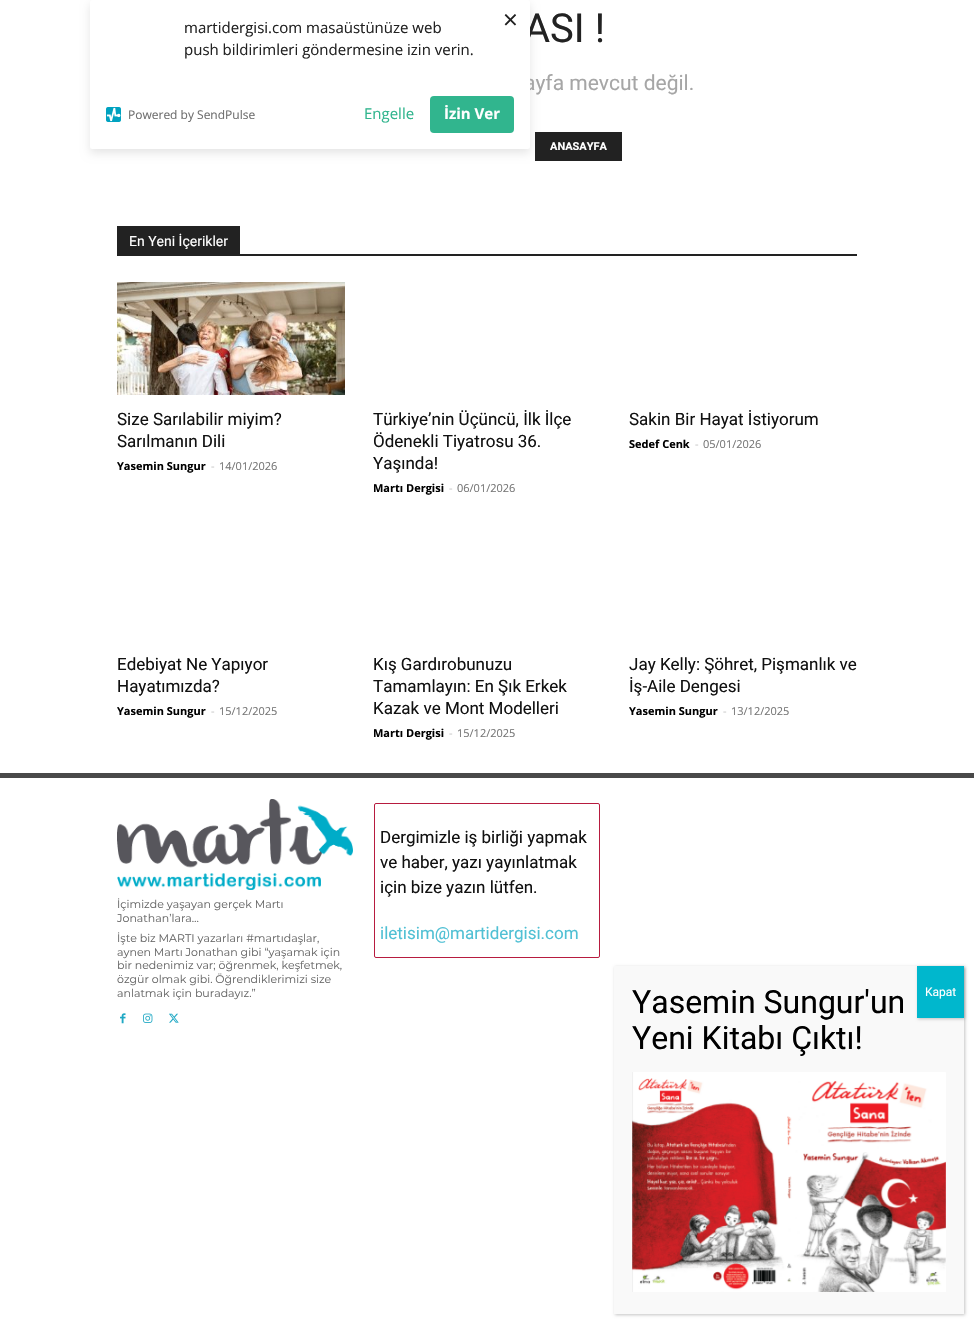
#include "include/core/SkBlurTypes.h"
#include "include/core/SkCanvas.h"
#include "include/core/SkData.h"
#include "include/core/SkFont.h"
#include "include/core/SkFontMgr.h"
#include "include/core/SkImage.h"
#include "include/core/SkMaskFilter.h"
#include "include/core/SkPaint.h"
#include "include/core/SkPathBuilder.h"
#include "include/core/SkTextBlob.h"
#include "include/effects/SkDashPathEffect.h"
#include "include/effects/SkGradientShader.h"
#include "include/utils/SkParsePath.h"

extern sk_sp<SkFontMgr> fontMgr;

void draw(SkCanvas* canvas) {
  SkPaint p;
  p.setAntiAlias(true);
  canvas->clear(SK_ColorWHITE);
  p.setColor(SkColorSetRGB(34, 34, 34));
  canvas->drawRect(SkRect::MakeLTRB(535, 132, 622, 161), p);
  canvas->drawRect(SkRect::MakeLTRB(117, 254, 857, 256), p);
  canvas->drawRect(SkRect::MakeLTRB(117, 226, 240, 254), p);
  canvas->drawImageRect(SkImages::DeferredFromEncodedData(SkData::MakeFromFileName("images/1.png")), SkRect::MakeLTRB(117, 282, 345, 395), SkSamplingOptions());
  p.setColor(SkColorSetRGB(73, 73, 73));
  canvas->drawRect(SkRect::MakeLTRB(0, 773, 974, 778), p);
  canvas->drawImageRect(SkImages::DeferredFromEncodedData(SkData::MakeFromFileName("images/2.png")), SkRect::MakeLTRB(117, 799, 353, 890), SkSamplingOptions());
  canvas->drawImageRect(SkImages::DeferredFromEncodedData(SkData::MakeFromFileName("images/3.png")), SkRect::MakeLTRB(120, 1013, 126, 1024), SkSamplingOptions());
  canvas->drawImageRect(SkImages::DeferredFromEncodedData(SkData::MakeFromFileName("images/4.png")), SkRect::MakeLTRB(143, 1013, 153, 1023), SkSamplingOptions());
  canvas->drawImageRect(SkImages::DeferredFromEncodedData(SkData::MakeFromFileName("images/5.png")), SkRect::MakeLTRB(169, 1013, 179, 1023), SkSamplingOptions());
  p.setStyle(SkPaint::kStroke_Style);
  p.setStrokeWidth(1);
  p.setColor(SkColorSetRGB(183, 27, 63));
  canvas->drawRoundRect(SkRect::MakeLTRB(374.5f, 803.5f, 599.5f, 957.5f), 1.5f, 1.5f, p);
  p.setStyle(SkPaint::kFill_Style);
  p.setColor(SkColorSetARGB(26, 0, 0, 0));
  p.setMaskFilter(SkMaskFilter::MakeBlur(kNormal_SkBlurStyle, 5));
  canvas->drawRoundRect(SkRect::MakeLTRB(90, 4, 530, 153), 2, 2, p);
  p.setMaskFilter(nullptr);
  p.setColor(SkColorSetARGB(59, 2, 2, 2));
  p.setMaskFilter(SkMaskFilter::MakeBlur(kNormal_SkBlurStyle, 1.5f));
  canvas->drawRect(SkRect::MakeLTRB(615, 967, 965, 1315), p);
  p.setMaskFilter(nullptr);
  p.setColor(SkColorSetRGB(249, 249, 249));
  canvas->drawRect(SkRect::MakeLTRB(614, 966, 964, 1314), p);
  p.setColor(SkColorSetARGB(59, 2, 2, 2));
  p.setMaskFilter(SkMaskFilter::MakeBlur(kNormal_SkBlurStyle, 1.5f));
  canvas->drawRect(SkRect::MakeLTRB(918, 967, 965, 1019), p);
  p.setMaskFilter(nullptr);
  p.setColor(SkColorSetRGB(0, 183, 205));
  canvas->drawRect(SkRect::MakeLTRB(917, 966, 964, 1018), p);
  canvas->drawImageRect(SkImages::DeferredFromEncodedData(SkData::MakeFromFileName("images/7.png")), SkRect::MakeLTRB(632, 1072, 946, 1292), SkSamplingOptions());
  SkFont font1(fontMgr->matchFamilyStyle("Roboto", SkFontStyle::Normal()), 40);
  font1.setSubpixel(true);
  p.setColor(SkColorSetRGB(34, 34, 34));
  canvas->drawString("ASI !", 524, 42, font1, p);
  SkFont font2(fontMgr->matchFamilyStyle("Roboto", SkFontStyle::Normal()), 21);
  font2.setSubpixel(true);
  p.setColor(SkColorSetRGB(166, 166, 166));
  canvas->drawString("ayfa mevcut değil.", 524, 90, font2, p);
  SkFont font3(fontMgr->matchFamilyStyle("Roboto", SkFontStyle::Bold()), 11);
  font3.setSubpixel(true);
  p.setColor(SK_ColorWHITE);
  canvas->drawString("ANASAYFA", 550, 150, font3, p);
  SkFont font4(fontMgr->matchFamilyStyle("Roboto", SkFontStyle::Normal()), 14);
  font4.setSubpixel(true);
  canvas->drawString("En Yeni İçerikler", 129, 246, font4, p);
  SkFont font5(fontMgr->matchFamilyStyle("Roboto", SkFontStyle::Normal()), 17);
  font5.setSubpixel(true);
  p.setColor(SkColorSetRGB(17, 17, 17));
  canvas->drawString("Size Sarılabilir miyim?", 117, 425, font5, p);
  canvas->drawString("Sarılmanın Dili", 117, 447, font5, p);
  SkFont font6(fontMgr->matchFamilyStyle("Open Sans", SkFontStyle::Bold()), 11);
  font6.setSubpixel(true);
  p.setColor(SK_ColorBLACK);
  canvas->drawString("Yasemin Sungur", 117, 470, font6, p);
  SkFont font7(fontMgr->matchFamilyStyle("Open Sans", SkFontStyle::Normal()), 11);
  font7.setSubpixel(true);
  p.setColor(SkColorSetRGB(204, 204, 204));
  canvas->drawString("-", 211, 470, font7, p);
  p.setColor(SkColorSetRGB(118, 118, 118));
  canvas->drawString("14/01/2026", 219, 470, font7, p);
  p.setColor(SkColorSetRGB(17, 17, 17));
  canvas->drawString("Türkiye’nin Üçüncü, İlk İlçe", 373, 425, font5, p);
  canvas->drawString("Ödenekli Tiyatrosu 36.", 373, 447, font5, p);
  canvas->drawString("Yaşında!", 373, 469, font5, p);
  p.setColor(SK_ColorBLACK);
  canvas->drawString("Martı Dergisi", 373, 492, font6, p);
  p.setColor(SkColorSetRGB(204, 204, 204));
  canvas->drawString("-", 449, 492, font7, p);
  p.setColor(SkColorSetRGB(118, 118, 118));
  canvas->drawString("06/01/2026", 457, 492, font7, p);
  p.setColor(SkColorSetRGB(17, 17, 17));
  canvas->drawString("Sakin Bir Hayat İstiyorum", 629, 425, font5, p);
  p.setColor(SK_ColorBLACK);
  canvas->drawString("Sedef Cenk", 629, 448, font6, p);
  p.setColor(SkColorSetRGB(204, 204, 204));
  canvas->drawString("-", 695, 448, font7, p);
  p.setColor(SkColorSetRGB(118, 118, 118));
  canvas->drawString("05/01/2026", 703, 448, font7, p);
  p.setColor(SkColorSetRGB(17, 17, 17));
  canvas->drawString("Edebiyat Ne Yapıyor", 117, 670, font5, p);
  canvas->drawString("Hayatımızda?", 117, 692, font5, p);
  p.setColor(SK_ColorBLACK);
  canvas->drawString("Yasemin Sungur", 117, 715, font6, p);
  p.setColor(SkColorSetRGB(204, 204, 204));
  canvas->drawString("-", 211, 715, font7, p);
  p.setColor(SkColorSetRGB(118, 118, 118));
  canvas->drawString("15/12/2025", 219, 715, font7, p);
  p.setColor(SkColorSetRGB(17, 17, 17));
  canvas->drawString("Kış Gardırobunuzu", 373, 670, font5, p);
  canvas->drawString("Tamamlayın: En Şık Erkek", 373, 692, font5, p);
  canvas->drawString("Kazak ve Mont Modelleri", 373, 714, font5, p);
  p.setColor(SK_ColorBLACK);
  canvas->drawString("Martı Dergisi", 373, 737, font6, p);
  p.setColor(SkColorSetRGB(204, 204, 204));
  canvas->drawString("-", 449, 737, font7, p);
  p.setColor(SkColorSetRGB(118, 118, 118));
  canvas->drawString("15/12/2025", 457, 737, font7, p);
  p.setColor(SkColorSetRGB(17, 17, 17));
  canvas->drawString("Jay Kelly: Şöhret, Pişmanlık ve", 629, 670, font5, p);
  canvas->drawString("İş-Aile Dengesi", 629, 692, font5, p);
  p.setColor(SK_ColorBLACK);
  canvas->drawString("Yasemin Sungur", 629, 715, font6, p);
  p.setColor(SkColorSetRGB(204, 204, 204));
  canvas->drawString("-", 723, 715, font7, p);
  p.setColor(SkColorSetRGB(118, 118, 118));
  canvas->drawString("13/12/2025", 731, 715, font7, p);
  SkFont font8(fontMgr->matchFamilyStyle("Montserrat", SkFontStyle::Normal()), 11);
  font8.setSubpixel(true);
  p.setColor(SkColorSetRGB(102, 102, 102));
  canvas->drawString("İçimizde yaşayan gerçek Martı", 117, 908, font8, p);
  canvas->drawString("Jonathan’lara…", 117, 922, font8, p);
  canvas->drawString("İşte biz MARTI yazarları #martıdaşlar,", 117, 942, font8, p);
  canvas->drawString("aynen Martı Jonathan gibi “yaşamak için", 117, 956, font8, p);
  canvas->drawString("bir nedenimiz var; öğrenmek, keşfetmek,", 117, 969, font8, p);
  canvas->drawString("özgür olmak gibi. Öğrendiklerimizi size", 117, 983, font8, p);
  canvas->drawString("anlatmak için buradayız.”", 117, 997, font8, p);
  p.setColor(SkColorSetRGB(17, 17, 17));
  canvas->drawString("Dergimizle iş birliği yapmak", 380, 843, font5, p);
  canvas->drawString("ve haber, yazı yayınlatmak", 380, 868, font5, p);
  canvas->drawString("için bize yazın lütfen.", 380, 893, font5, p);
  p.setColor(SkColorSetRGB(80, 192, 212));
  canvas->drawString("iletisim@martidergisi.com", 380, 939, font5, p);
  p.setColor(SK_ColorWHITE);
  canvas->drawRoundRect(SkRect::MakeLTRB(90, 0, 530, 149), 2, 2, p);
  SkFont font9(fontMgr->matchFamilyStyle("Open Sans", SkFontStyle::Normal()), 15);
  font9.setSubpixel(true);
  p.setColor(SkColorSetRGB(34, 34, 34));
  canvas->drawString("martidergisi.com masaüstünüze web", 184, 33, font9, p);
  canvas->drawString("push bildirimleri göndermesine izin verin.", 184, 55, font9, p);
  canvas->drawImageRect(SkImages::DeferredFromEncodedData(SkData::MakeFromFileName("images/6.png")), SkRect::MakeLTRB(106, 107, 121, 122), SkSamplingOptions());
  SkFont font10(fontMgr->matchFamilyStyle("Open Sans", SkFontStyle::Normal()), 12);
  font10.setSubpixel(true);
  p.setColor(SkColorSetRGB(111, 111, 111));
  canvas->drawString("Powered by SendPulse", 128, 119, font10, p);
  p.setColor(SkColorSetRGB(49, 181, 142));
  canvas->drawString("Engelle", 364, 119, font9, p);
  canvas->drawRoundRect(SkRect::MakeLTRB(430, 96, 514, 133), 4, 4, p);
  SkFont font11(fontMgr->matchFamilyStyle("Open Sans", SkFontStyle::Bold()), 15);
  font11.setSubpixel(true);
  p.setColor(SK_ColorWHITE);
  canvas->drawString("İzin Ver", 444, 119, font11, p);
  SkFont font12(fontMgr->matchFamilyStyle("Open Sans", SkFontStyle::Normal()), 26);
  font12.setSubpixel(true);
  p.setColor(SkColorSetRGB(34, 34, 34));
  canvas->drawString("×", 503, 29, font12, p);
  SkFont font13(fontMgr->matchFamilyStyle("Roboto", SkFontStyle::Normal()), 32);
  font13.setSubpixel(true);
  p.setColor(SK_ColorBLACK);
  canvas->drawString("Yasemin Sungur'un", 632, 1013, font13, p);
  canvas->drawString("Yeni Kitabı Çıktı!", 632, 1049, font13, p);
  SkFont font14(fontMgr->matchFamilyStyle("Roboto", SkFontStyle::Normal()), 12);
  font14.setSubpixel(true);
  p.setColor(SK_ColorWHITE);
  canvas->drawString("Kapat", 925, 996, font14, p);
}
